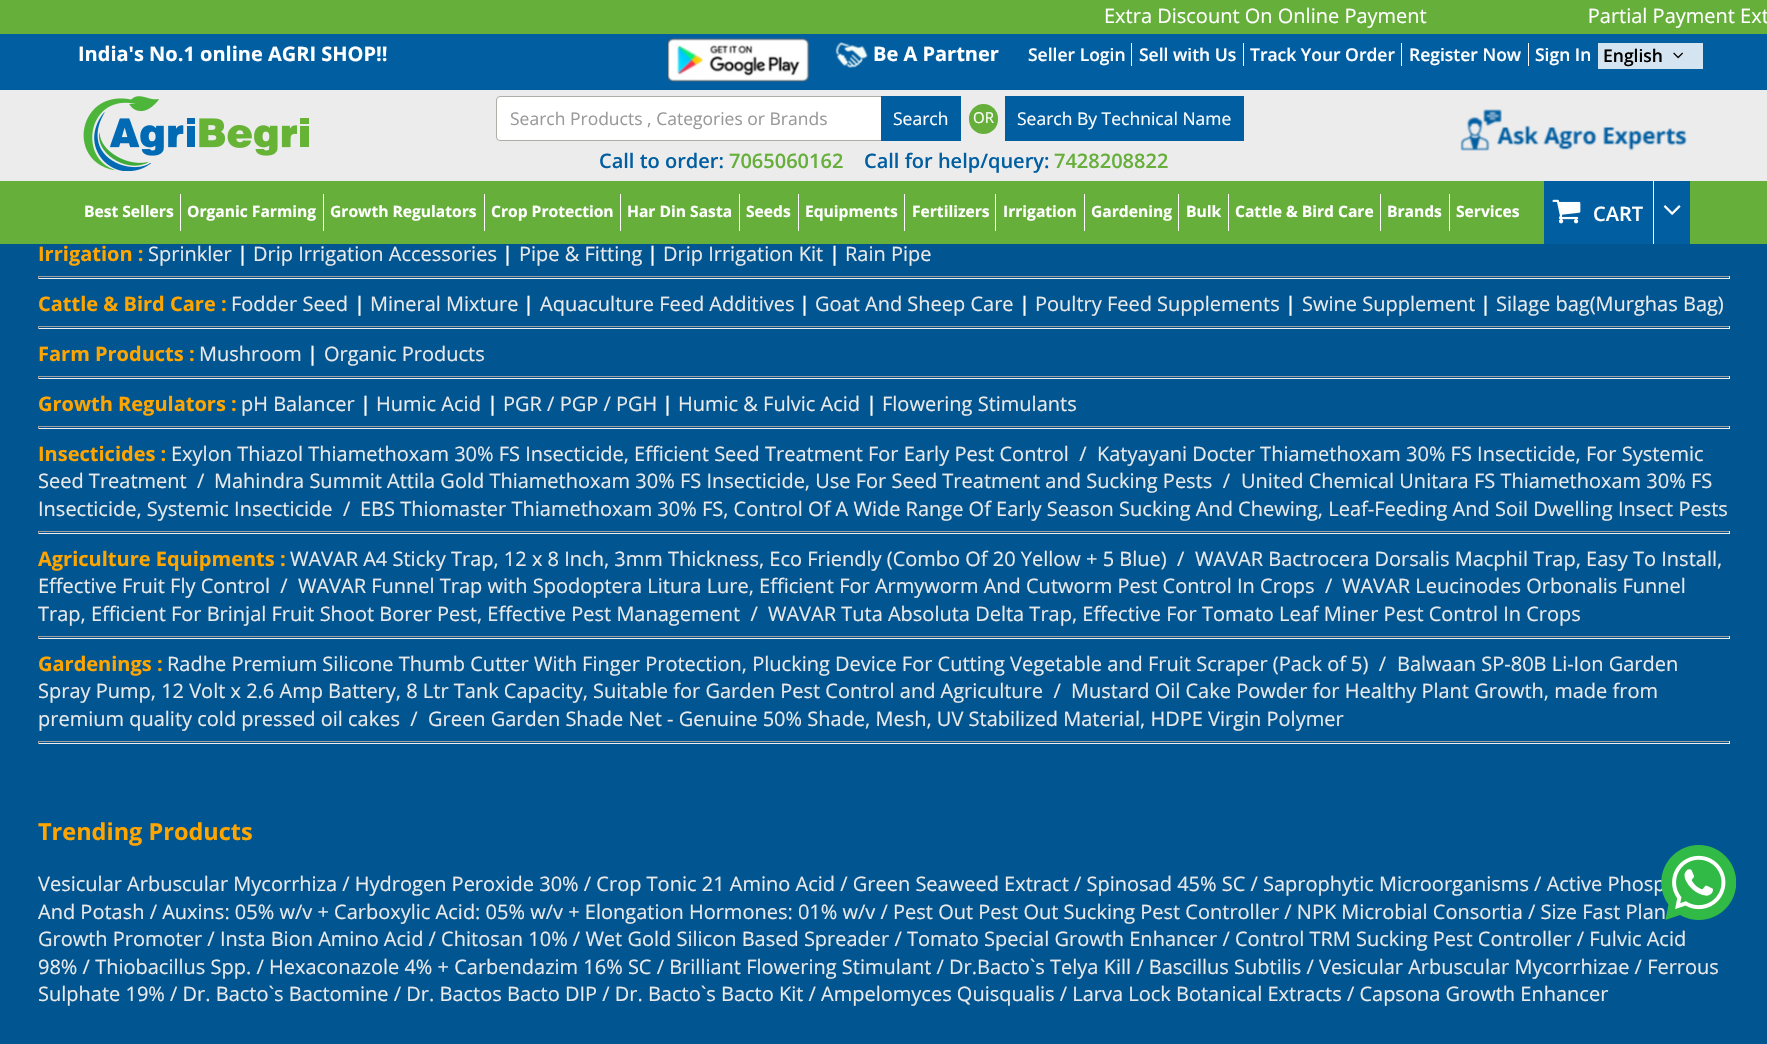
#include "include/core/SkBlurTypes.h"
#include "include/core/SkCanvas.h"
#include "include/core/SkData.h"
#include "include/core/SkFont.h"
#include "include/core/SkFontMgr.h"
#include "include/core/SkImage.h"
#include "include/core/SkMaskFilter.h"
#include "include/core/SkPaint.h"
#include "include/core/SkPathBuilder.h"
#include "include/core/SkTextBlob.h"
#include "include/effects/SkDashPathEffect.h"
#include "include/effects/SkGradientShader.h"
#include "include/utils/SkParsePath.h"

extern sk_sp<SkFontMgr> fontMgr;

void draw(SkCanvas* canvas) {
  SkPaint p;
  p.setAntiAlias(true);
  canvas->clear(SkColorSetRGB(1, 85, 145));
  p.setColor(SkColorSetRGB(102, 175, 58));
  canvas->drawRect(SkRect::MakeLTRB(0, 0, 1767, 34), p);
  p.setColor(SkColorSetRGB(1, 94, 161));
  canvas->drawRect(SkRect::MakeLTRB(0, 34, 1767, 90), p);
  canvas->drawImageRect(SkImages::DeferredFromEncodedData(SkData::MakeFromFileName("images/1.png")), SkRect::MakeLTRB(668, 38, 810, 82), SkSamplingOptions());
  canvas->drawImageRect(SkImages::DeferredFromEncodedData(SkData::MakeFromFileName("images/2.png")), SkRect::MakeLTRB(835, 42, 868, 68), SkSamplingOptions());
  p.setColor(SK_ColorWHITE);
  canvas->drawRect(SkRect::MakeLTRB(1131, 43, 1132, 66), p);
  canvas->drawRect(SkRect::MakeLTRB(1243, 43, 1244, 66), p);
  canvas->drawRect(SkRect::MakeLTRB(1401, 43, 1402, 66), p);
  canvas->drawRect(SkRect::MakeLTRB(1528, 43, 1529, 66), p);
  p.setColor(SkColorSetRGB(213, 228, 241));
  canvas->drawRect(SkRect::MakeLTRB(1598, 43, 1703, 69), p);
  canvas->drawImageRect(SkImages::DeferredFromEncodedData(SkData::MakeFromFileName("images/3.png")), SkRect::MakeLTRB(1673, 52, 1683, 59), SkSamplingOptions());
  p.setColor(SkColorSetRGB(236, 236, 236));
  canvas->drawRect(SkRect::MakeLTRB(0, 90, 1767, 181), p);
  canvas->drawImageRect(SkImages::DeferredFromEncodedData(SkData::MakeFromFileName("images/4.png")), SkRect::MakeLTRB(83, 96, 309, 171), SkSamplingOptions());
  p.setColor(SK_ColorWHITE);
  canvas->drawRoundRect(SkRect::MakeLTRB(496.5f, 96.5f, 960.5f, 140.5f), 3.5f, 3.5f, p);
  p.setStyle(SkPaint::kStroke_Style);
  p.setStrokeWidth(1);
  p.setColor(SkColorSetRGB(175, 173, 168));
  canvas->drawRoundRect(SkRect::MakeLTRB(496.5f, 96.5f, 960.5f, 140.5f), 3.5f, 3.5f, p);
  p.setStyle(SkPaint::kFill_Style);
  p.setColor(SkColorSetRGB(1, 94, 161));
  canvas->drawRect(SkRect::MakeLTRB(881, 96, 961, 141), p);
  p.setColor(SkColorSetRGB(102, 175, 58));
  canvas->drawRoundRect(SkRect::MakeLTRB(969, 104, 998, 134), 14.5f, 14.5f, p);
  p.setColor(SkColorSetRGB(1, 94, 161));
  canvas->drawRect(SkRect::MakeLTRB(1005, 96, 1244, 141), p);
  canvas->drawImageRect(SkImages::DeferredFromEncodedData(SkData::MakeFromFileName("images/5.png")), SkRect::MakeLTRB(1460, 109, 1687, 151), SkSamplingOptions());
  p.setColor(SkColorSetRGB(102, 175, 58));
  canvas->drawRect(SkRect::MakeLTRB(0, 181, 1767, 244), p);
  p.setColor(SK_ColorWHITE);
  canvas->drawRect(SkRect::MakeLTRB(180, 194, 181, 231), p);
  canvas->drawRect(SkRect::MakeLTRB(323, 194, 324, 231), p);
  canvas->drawRect(SkRect::MakeLTRB(484, 194, 485, 231), p);
  canvas->drawRect(SkRect::MakeLTRB(620, 194, 621, 231), p);
  canvas->drawRect(SkRect::MakeLTRB(739, 194, 740, 231), p);
  canvas->drawRect(SkRect::MakeLTRB(798, 194, 799, 231), p);
  canvas->drawRect(SkRect::MakeLTRB(904, 194, 905, 231), p);
  canvas->drawRect(SkRect::MakeLTRB(995, 194, 996, 231), p);
  canvas->drawRect(SkRect::MakeLTRB(1084, 194, 1085, 231), p);
  canvas->drawRect(SkRect::MakeLTRB(1178, 194, 1179, 231), p);
  canvas->drawRect(SkRect::MakeLTRB(1228, 194, 1229, 231), p);
  canvas->drawRect(SkRect::MakeLTRB(1380, 194, 1381, 231), p);
  canvas->drawRect(SkRect::MakeLTRB(1449, 194, 1450, 231), p);
  p.setColor(SkColorSetRGB(1, 94, 161));
  canvas->drawRect(SkRect::MakeLTRB(1544, 181, 1690, 244), p);
  p.setColor(SK_ColorWHITE);
  canvas->drawRect(SkRect::MakeLTRB(1653, 181, 1654, 244), p);
  canvas->drawImageRect(SkImages::DeferredFromEncodedData(SkData::MakeFromFileName("images/6.png")), SkRect::MakeLTRB(1552, 199, 1581, 224), SkSamplingOptions());
  canvas->drawImageRect(SkImages::DeferredFromEncodedData(SkData::MakeFromFileName("images/7.png")), SkRect::MakeLTRB(1663, 205, 1681, 215), SkSamplingOptions());
  p.setColor(SkColorSetRGB(159, 159, 159));
  canvas->drawRect(SkRect::MakeLTRB(38, 276, 1730, 277), p);
  p.setColor(SkColorSetRGB(238, 238, 238));
  canvas->drawRect(SkRect::MakeLTRB(1729, 276, 1730, 279), p);
  canvas->drawRect(SkRect::MakeLTRB(38, 278, 1730, 279), p);
  p.setColor(SkColorSetRGB(159, 159, 159));
  canvas->drawRect(SkRect::MakeLTRB(38, 276, 39, 279), p);
  canvas->drawRect(SkRect::MakeLTRB(38, 326, 1730, 327), p);
  p.setColor(SkColorSetRGB(238, 238, 238));
  canvas->drawRect(SkRect::MakeLTRB(1729, 326, 1730, 329), p);
  canvas->drawRect(SkRect::MakeLTRB(38, 328, 1730, 329), p);
  p.setColor(SkColorSetRGB(159, 159, 159));
  canvas->drawRect(SkRect::MakeLTRB(38, 326, 39, 329), p);
  canvas->drawRect(SkRect::MakeLTRB(38, 376, 1730, 377), p);
  p.setColor(SkColorSetRGB(238, 238, 238));
  canvas->drawRect(SkRect::MakeLTRB(1729, 376, 1730, 379), p);
  canvas->drawRect(SkRect::MakeLTRB(38, 378, 1730, 379), p);
  p.setColor(SkColorSetRGB(159, 159, 159));
  canvas->drawRect(SkRect::MakeLTRB(38, 376, 39, 379), p);
  canvas->drawRect(SkRect::MakeLTRB(38, 426, 1730, 427), p);
  p.setColor(SkColorSetRGB(238, 238, 238));
  canvas->drawRect(SkRect::MakeLTRB(1729, 426, 1730, 429), p);
  canvas->drawRect(SkRect::MakeLTRB(38, 428, 1730, 429), p);
  p.setColor(SkColorSetRGB(159, 159, 159));
  canvas->drawRect(SkRect::MakeLTRB(38, 426, 39, 429), p);
  canvas->drawRect(SkRect::MakeLTRB(38, 531, 1730, 532), p);
  p.setColor(SkColorSetRGB(238, 238, 238));
  canvas->drawRect(SkRect::MakeLTRB(1729, 531, 1730, 534), p);
  canvas->drawRect(SkRect::MakeLTRB(38, 533, 1730, 534), p);
  p.setColor(SkColorSetRGB(159, 159, 159));
  canvas->drawRect(SkRect::MakeLTRB(38, 531, 39, 534), p);
  canvas->drawRect(SkRect::MakeLTRB(38, 636, 1730, 637), p);
  p.setColor(SkColorSetRGB(238, 238, 238));
  canvas->drawRect(SkRect::MakeLTRB(1729, 636, 1730, 639), p);
  canvas->drawRect(SkRect::MakeLTRB(38, 638, 1730, 639), p);
  p.setColor(SkColorSetRGB(159, 159, 159));
  canvas->drawRect(SkRect::MakeLTRB(38, 636, 39, 639), p);
  canvas->drawRect(SkRect::MakeLTRB(38, 741, 1730, 742), p);
  p.setColor(SkColorSetRGB(238, 238, 238));
  canvas->drawRect(SkRect::MakeLTRB(1729, 741, 1730, 744), p);
  canvas->drawRect(SkRect::MakeLTRB(38, 743, 1730, 744), p);
  p.setColor(SkColorSetRGB(159, 159, 159));
  canvas->drawRect(SkRect::MakeLTRB(38, 741, 39, 744), p);
  SkFont font1(fontMgr->matchFamilyStyle("Open Sans", SkFontStyle::Normal()), 20);
  font1.setSubpixel(true);
  p.setColor(SK_ColorWHITE);
  canvas->drawString("Extra Discount On Online Payment                               Partial Payment Ext", 1104, 23, font1, p);
  SkFont font2(fontMgr->matchFamilyStyle("Open Sans", SkFontStyle::Bold()), 20);
  font2.setSubpixel(true);
  canvas->drawString("India's No.1 online AGRI SHOP!!", 78, 61, font2, p);
  canvas->drawString("Be A Partner", 873, 61, font2, p);
  SkFont font3(fontMgr->matchFamilyStyle("Open Sans", SkFontStyle(600, SkFontStyle::kNormal_Width, SkFontStyle::kUpright_Slant)), 17.5f);
  font3.setSubpixel(true);
  canvas->drawString("Seller Login", 1028, 61, font3, p);
  canvas->drawString("Sell with Us", 1139, 61, font3, p);
  canvas->drawString("Track Your Order", 1250, 61, font3, p);
  canvas->drawString("Register Now", 1409, 61, font3, p);
  canvas->drawString("Sign In", 1535, 61, font3, p);
  p.setColor(SK_ColorBLACK);
  canvas->drawString("English", 1603, 62, font3, p);
  SkFont font4(fontMgr->matchFamilyStyle("Open Sans", SkFontStyle::Normal()), 17.5f);
  font4.setSubpixel(true);
  p.setColor(SkColorSetRGB(153, 153, 153));
  canvas->drawString("Search Products , Categories or Brands", 510, 125, font4, p);
  p.setColor(SK_ColorWHITE);
  canvas->drawString("Search", 893, 125, font4, p);
  SkFont font5(fontMgr->matchFamilyStyle("Open Sans", SkFontStyle::Normal()), 15);
  font5.setSubpixel(true);
  canvas->drawString("OR", 973, 123, font5, p);
  canvas->drawString("Search By Technical Name", 1017, 125, font4, p);
  SkFont font6(fontMgr->matchFamilyStyle("Open Sans", SkFontStyle(600, SkFontStyle::kNormal_Width, SkFontStyle::kUpright_Slant)), 20);
  font6.setSubpixel(true);
  p.setColor(SkColorSetRGB(1, 94, 161));
  canvas->drawString("Call to order:", 599, 168, font6, p);
  p.setColor(SkColorSetRGB(102, 175, 58));
  canvas->drawString("7065060162", 729, 168, font6, p);
  p.setColor(SkColorSetRGB(1, 94, 161));
  canvas->drawString("Call for help/query:", 864, 168, font6, p);
  p.setColor(SkColorSetRGB(102, 175, 58));
  canvas->drawString("7428208822", 1054, 168, font6, p);
  SkFont font7(fontMgr->matchFamilyStyle("Open Sans", SkFontStyle::Bold()), 15.6f);
  font7.setSubpixel(true);
  p.setColor(SK_ColorWHITE);
  canvas->drawString("Best Sellers", 84, 217, font7, p);
  canvas->drawString("Organic Farming", 187, 217, font7, p);
  canvas->drawString("Growth Regulators", 330, 217, font7, p);
  canvas->drawString("Crop Protection", 491, 217, font7, p);
  canvas->drawString("Har Din Sasta", 627, 217, font7, p);
  canvas->drawString("Seeds", 746, 217, font7, p);
  canvas->drawString("Equipments", 805, 217, font7, p);
  canvas->drawString("Fertilizers", 912, 217, font7, p);
  canvas->drawString("Irrigation", 1003, 217, font7, p);
  canvas->drawString("Gardening", 1091, 217, font7, p);
  canvas->drawString("Bulk", 1186, 217, font7, p);
  canvas->drawString("Cattle & Bird Care", 1235, 217, font7, p);
  canvas->drawString("Brands", 1387, 217, font7, p);
  canvas->drawString("Services", 1456, 217, font7, p);
  canvas->drawString("CART", 1593, 221, font6, p);
  p.setColor(SkColorSetRGB(255, 165, 0));
  canvas->drawString("Irrigation :", 38, 261, font2, p);
  p.setColor(SkColorSetRGB(234, 234, 234));
  canvas->drawString("Sprinkler", 148, 261, font1, p);
  p.setColor(SK_ColorWHITE);
  canvas->drawString("|", 237, 261, font6, p);
  p.setColor(SkColorSetRGB(234, 234, 234));
  canvas->drawString("Drip Irrigation Accessories", 253, 261, font1, p);
  p.setColor(SK_ColorWHITE);
  canvas->drawString("|", 502, 261, font6, p);
  p.setColor(SkColorSetRGB(234, 234, 234));
  canvas->drawString("Pipe & Fitting", 519, 261, font1, p);
  p.setColor(SK_ColorWHITE);
  canvas->drawString("|", 647, 261, font6, p);
  p.setColor(SkColorSetRGB(234, 234, 234));
  canvas->drawString("Drip Irrigation Kit", 663, 261, font1, p);
  p.setColor(SK_ColorWHITE);
  canvas->drawString("|", 829, 261, font6, p);
  p.setColor(SkColorSetRGB(234, 234, 234));
  canvas->drawString("Rain Pipe", 845, 261, font1, p);
  p.setColor(SkColorSetRGB(255, 165, 0));
  canvas->drawString("Cattle & Bird Care :", 38, 311, font2, p);
  p.setColor(SkColorSetRGB(234, 234, 234));
  canvas->drawString("Fodder Seed", 231, 311, font1, p);
  p.setColor(SK_ColorWHITE);
  canvas->drawString("|", 354, 311, font6, p);
  p.setColor(SkColorSetRGB(234, 234, 234));
  canvas->drawString("Mineral Mixture", 370, 311, font1, p);
  p.setColor(SK_ColorWHITE);
  canvas->drawString("|", 523, 311, font6, p);
  p.setColor(SkColorSetRGB(234, 234, 234));
  canvas->drawString("Aquaculture Feed Additives", 540, 311, font1, p);
  p.setColor(SK_ColorWHITE);
  canvas->drawString("|", 799, 311, font6, p);
  p.setColor(SkColorSetRGB(234, 234, 234));
  canvas->drawString("Goat And Sheep Care", 815, 311, font1, p);
  p.setColor(SK_ColorWHITE);
  canvas->drawString("|", 1019, 311, font6, p);
  p.setColor(SkColorSetRGB(234, 234, 234));
  canvas->drawString("Poultry Feed Supplements", 1035, 311, font1, p);
  p.setColor(SK_ColorWHITE);
  canvas->drawString("|", 1285, 311, font6, p);
  p.setColor(SkColorSetRGB(234, 234, 234));
  canvas->drawString("Swine Supplement", 1302, 311, font1, p);
  p.setColor(SK_ColorWHITE);
  canvas->drawString("|", 1480, 311, font6, p);
  p.setColor(SkColorSetRGB(234, 234, 234));
  canvas->drawString("Silage bag(Murghas Bag)", 1496, 311, font1, p);
  p.setColor(SkColorSetRGB(255, 165, 0));
  canvas->drawString("Farm Products :", 38, 361, font2, p);
  p.setColor(SkColorSetRGB(234, 234, 234));
  canvas->drawString("Mushroom", 199, 361, font1, p);
  p.setColor(SK_ColorWHITE);
  canvas->drawString("|", 307, 361, font6, p);
  p.setColor(SkColorSetRGB(234, 234, 234));
  canvas->drawString("Organic Products", 324, 361, font1, p);
  p.setColor(SkColorSetRGB(255, 165, 0));
  canvas->drawString("Growth Regulators :", 38, 411, font2, p);
  p.setColor(SkColorSetRGB(234, 234, 234));
  canvas->drawString("pH Balancer", 241, 411, font1, p);
  p.setColor(SK_ColorWHITE);
  canvas->drawString("|", 360, 411, font6, p);
  p.setColor(SkColorSetRGB(234, 234, 234));
  canvas->drawString("Humic Acid", 376, 411, font1, p);
  p.setColor(SK_ColorWHITE);
  canvas->drawString("|", 487, 411, font6, p);
  p.setColor(SkColorSetRGB(234, 234, 234));
  canvas->drawString("PGR / PGP / PGH", 503, 411, font1, p);
  p.setColor(SK_ColorWHITE);
  canvas->drawString("|", 662, 411, font6, p);
  p.setColor(SkColorSetRGB(234, 234, 234));
  canvas->drawString("Humic & Fulvic Acid", 678, 411, font1, p);
  p.setColor(SK_ColorWHITE);
  canvas->drawString("|", 866, 411, font6, p);
  p.setColor(SkColorSetRGB(234, 234, 234));
  canvas->drawString("Flowering Stimulants", 882, 411, font1, p);
  p.setColor(SkColorSetRGB(255, 165, 0));
  canvas->drawString("Insecticides :", 38, 461, font2, p);
  p.setColor(SkColorSetRGB(234, 234, 234));
  canvas->drawString("Exylon Thiazol Thiamethoxam 30% FS Insecticide, Efficient Seed Treatment For Early Pest Control  /", 171, 461, font1, p);
  canvas->drawString("Katyayani Docter Thiamethoxam 30% FS Insecticide, For Systemic", 1097, 461, font1, p);
  canvas->drawString("Seed Treatment  /", 38, 488, font1, p);
  canvas->drawString("Mahindra Summit Attila Gold Thiamethoxam 30% FS Insecticide, Use For Seed Treatment and Sucking Pests  /", 214, 488, font1, p);
  canvas->drawString("United Chemical Unitara FS Thiamethoxam 30% FS", 1241, 488, font1, p);
  canvas->drawString("Insecticide, Systemic Insecticide  /", 38, 516, font1, p);
  canvas->drawString("EBS Thiomaster Thiamethoxam 30% FS, Control Of A Wide Range Of Early Season Sucking And Chewing, Leaf-Feeding And Soil Dwelling Insect Pests", 360, 516, font1, p);
  p.setColor(SkColorSetRGB(255, 165, 0));
  canvas->drawString("Agriculture Equipments :", 38, 566, font2, p);
  p.setColor(SkColorSetRGB(234, 234, 234));
  canvas->drawString("WAVAR A4 Sticky Trap, 12 x 8 Inch, 3mm Thickness, Eco Friendly (Combo Of 20 Yellow + 5 Blue)  /", 290, 566, font1, p);
  canvas->drawString("WAVAR Bactrocera Dorsalis Macphil Trap, Easy To Install,", 1195, 566, font1, p);
  canvas->drawString("Effective Fruit Fly Control  /", 38, 593, font1, p);
  canvas->drawString("WAVAR Funnel Trap with Spodoptera Litura Lure, Efficient For Armyworm And Cutworm Pest Control In Crops  /", 298, 593, font1, p);
  canvas->drawString("WAVAR Leucinodes Orbonalis Funnel", 1342, 593, font1, p);
  canvas->drawString("Trap, Efficient For Brinjal Fruit Shoot Borer Pest, Effective Pest Management  /", 38, 621, font1, p);
  canvas->drawString("WAVAR Tuta Absoluta Delta Trap, Effective For Tomato Leaf Miner Pest Control In Crops", 768, 621, font1, p);
  p.setColor(SkColorSetRGB(255, 165, 0));
  canvas->drawString("Gardenings :", 38, 671, font2, p);
  p.setColor(SkColorSetRGB(234, 234, 234));
  canvas->drawString("Radhe Premium Silicone Thumb Cutter With Finger Protection, Plucking Device For Cutting Vegetable and Fruit Scraper (Pack of 5)  /", 167, 671, font1, p);
  canvas->drawString("Balwaan SP-80B Li-Ion Garden", 1397, 671, font1, p);
  canvas->drawString("Spray Pump, 12 Volt x 2.6 Amp Battery, 8 Ltr Tank Capacity, Suitable for Garden Pest Control and Agriculture  /", 38, 698, font1, p);
  canvas->drawString("Mustard Oil Cake Powder for Healthy Plant Growth, made from", 1071, 698, font1, p);
  canvas->drawString("premium quality cold pressed oil cakes  /", 38, 726, font1, p);
  canvas->drawString("Green Garden Shade Net - Genuine 50% Shade, Mesh, UV Stabilized Material, HDPE Virgin Polymer", 428, 726, font1, p);
  SkFont font8(fontMgr->matchFamilyStyle("Open Sans", SkFontStyle::Bold()), 23.5f);
  font8.setSubpixel(true);
  p.setColor(SkColorSetRGB(255, 165, 0));
  canvas->drawString("Trending Products", 38, 840, font8, p);
  p.setColor(SkColorSetRGB(234, 234, 234));
  canvas->drawString("Vesicular Arbuscular Mycorrhiza / Hydrogen Peroxide 30% / Crop Tonic 21 Amino Acid / Green Seaweed Extract / Spinosad 45% SC / Saprophytic Microorganisms / Active Phosp", 38, 891, font1, p);
  canvas->drawString("And Potash / Auxins: 05% w/v + Carboxylic Acid: 05% w/v + Elongation Hormones: 01% w/v / Pest Out Pest Out Sucking Pest Controller / NPK Microbial Consortia / Size Fast Plan", 38, 919, font1, p);
  canvas->drawString("Growth Promoter / Insta Bion Amino Acid / Chitosan 10% / Wet Gold Silicon Based Spreader / Tomato Special Growth Enhancer / Control TRM Sucking Pest Controller / Fulvic Acid", 38, 946, font1, p);
  canvas->drawString("98% / Thiobacillus Spp. / Hexaconazole 4% + Carbendazim 16% SC / Brilliant Flowering Stimulant / Dr.Bacto`s Telya Kill / Bascillus Subtilis / Vesicular Arbuscular Mycorrhizae / Ferrous", 38, 974, font1, p);
  canvas->drawString("Sulphate 19% / Dr. Bacto`s Bactomine / Dr. Bactos Bacto DIP / Dr. Bacto`s Bacto Kit / Ampelomyces Quisqualis / Larva Lock Botanical Extracts / Capsona Growth Enhancer", 38, 1001, font1, p);
  canvas->drawImageRect(SkImages::DeferredFromEncodedData(SkData::MakeFromFileName("images/8.png")), SkRect::MakeLTRB(1661, 845, 1736, 920), SkSamplingOptions());
}
